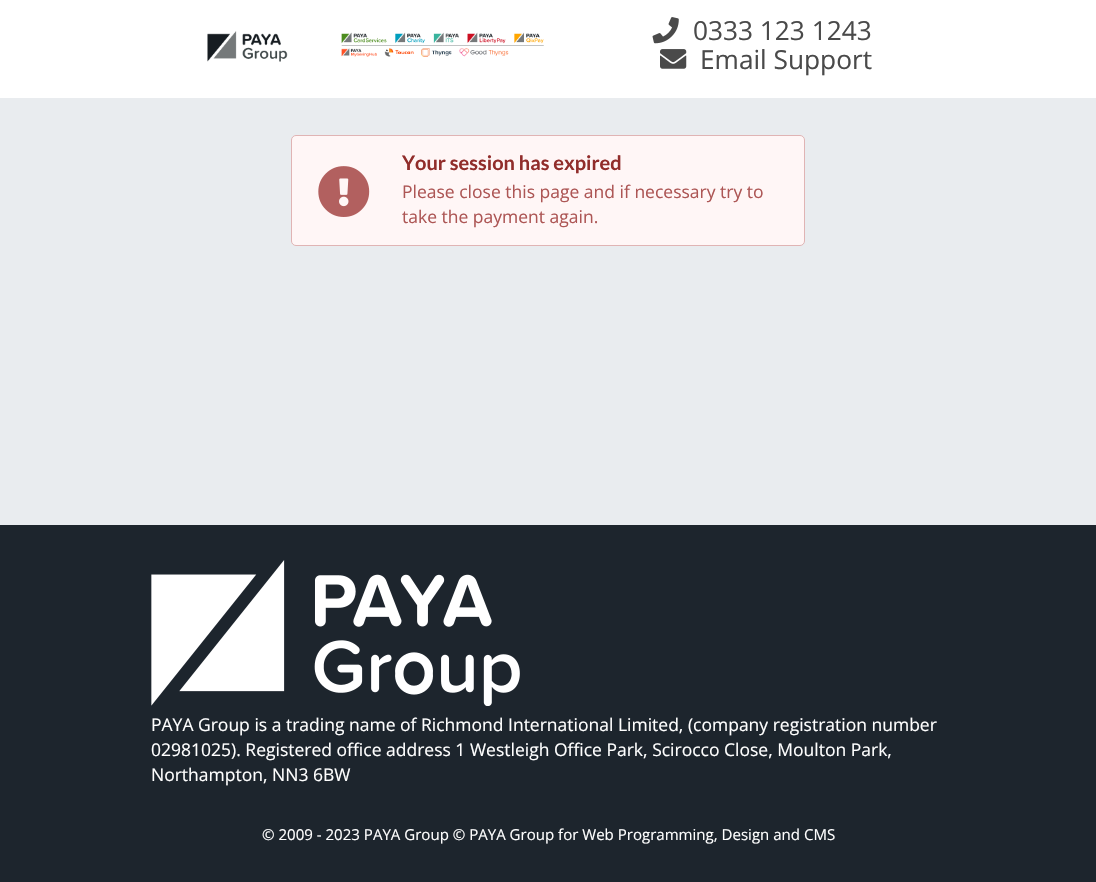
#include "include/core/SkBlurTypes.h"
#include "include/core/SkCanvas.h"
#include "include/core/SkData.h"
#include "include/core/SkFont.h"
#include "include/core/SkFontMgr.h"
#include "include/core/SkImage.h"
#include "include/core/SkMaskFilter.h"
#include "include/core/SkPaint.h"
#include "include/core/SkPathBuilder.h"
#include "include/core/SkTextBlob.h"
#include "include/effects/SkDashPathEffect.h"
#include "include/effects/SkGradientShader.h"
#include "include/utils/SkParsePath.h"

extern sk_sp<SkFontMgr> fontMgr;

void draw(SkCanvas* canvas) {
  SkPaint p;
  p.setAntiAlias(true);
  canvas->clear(SkColorSetRGB(233, 236, 239));
  p.setColor(SK_ColorWHITE);
  canvas->drawRect(SkRect::MakeLTRB(0, 0, 1096, 98), p);
  canvas->drawImageRect(SkImages::DeferredFromEncodedData(SkData::MakeFromFileName("images/1.png")), SkRect::MakeLTRB(207, 31, 544, 62), SkSamplingOptions());
  canvas->drawImageRect(SkImages::DeferredFromEncodedData(SkData::MakeFromFileName("images/2.png")), SkRect::MakeLTRB(652, 17, 679, 44), SkSamplingOptions());
  canvas->drawImageRect(SkImages::DeferredFromEncodedData(SkData::MakeFromFileName("images/3.png")), SkRect::MakeLTRB(660, 49, 687, 69), SkSamplingOptions());
  p.setColor(SkColorSetRGB(255, 246, 246));
  canvas->drawRoundRect(SkRect::MakeLTRB(291.5f, 135.5f, 804.5f, 245.5f), 4.5f, 4.5f, p);
  p.setStyle(SkPaint::kStroke_Style);
  p.setStrokeWidth(1);
  p.setColor(SkColorSetRGB(224, 180, 180));
  canvas->drawRoundRect(SkRect::MakeLTRB(291.5f, 135.5f, 804.5f, 245.5f), 4.5f, 4.5f, p);
  canvas->drawImageRect(SkImages::DeferredFromEncodedData(SkData::MakeFromFileName("images/4.png")), SkRect::MakeLTRB(318, 166, 370, 217), SkSamplingOptions());
  p.setStyle(SkPaint::kFill_Style);
  p.setColor(SkColorSetRGB(29, 37, 45));
  canvas->drawRect(SkRect::MakeLTRB(0, 525, 1096, 882), p);
  canvas->drawImageRect(SkImages::DeferredFromEncodedData(SkData::MakeFromFileName("images/5.png")), SkRect::MakeLTRB(151, 560, 520, 706), SkSamplingOptions());
  SkFont font1(fontMgr->matchFamilyStyle("Open Sans", SkFontStyle::Normal()), 26.25f);
  font1.setSubpixel(true);
  p.setColor(SkColorSetRGB(74, 74, 74));
  canvas->drawString("0333 123 1243", 693, 40, font1, p);
  canvas->drawString("Email Support", 700, 69, font1, p);
  SkFont font2(fontMgr->matchFamilyStyle("Lato", SkFontStyle::Bold()), 20);
  font2.setSubpixel(true);
  p.setColor(SkColorSetRGB(145, 45, 43));
  canvas->drawString("Your session has expired", 402, 170, font2, p);
  SkFont font3(fontMgr->matchFamilyStyle("Open Sans", SkFontStyle::Normal()), 17.5f);
  font3.setSubpixel(true);
  p.setColor(SkColorSetRGB(173, 86, 85));
  canvas->drawString("Please close this page and if necessary try to", 402, 198, font3, p);
  canvas->drawString("take the payment again.", 402, 223, font3, p);
  p.setColor(SK_ColorWHITE);
  canvas->drawString("PAYA Group is a trading name of Richmond International Limited, (company registration number", 151, 731, font3, p);
  canvas->drawString("02981025). Registered office address 1 Westleigh Office Park, Scirocco Close, Moulton Park,", 151, 756, font3, p);
  canvas->drawString("Northampton, NN3 6BW", 151, 781, font3, p);
  SkFont font4(fontMgr->matchFamilyStyle("Open Sans", SkFontStyle::Normal()), 15.05f);
  font4.setSubpixel(true);
  canvas->drawString("© 2009 - 2023 PAYA Group © PAYA Group for Web Programming, Design and CMS", 262, 840, font4, p);
}
